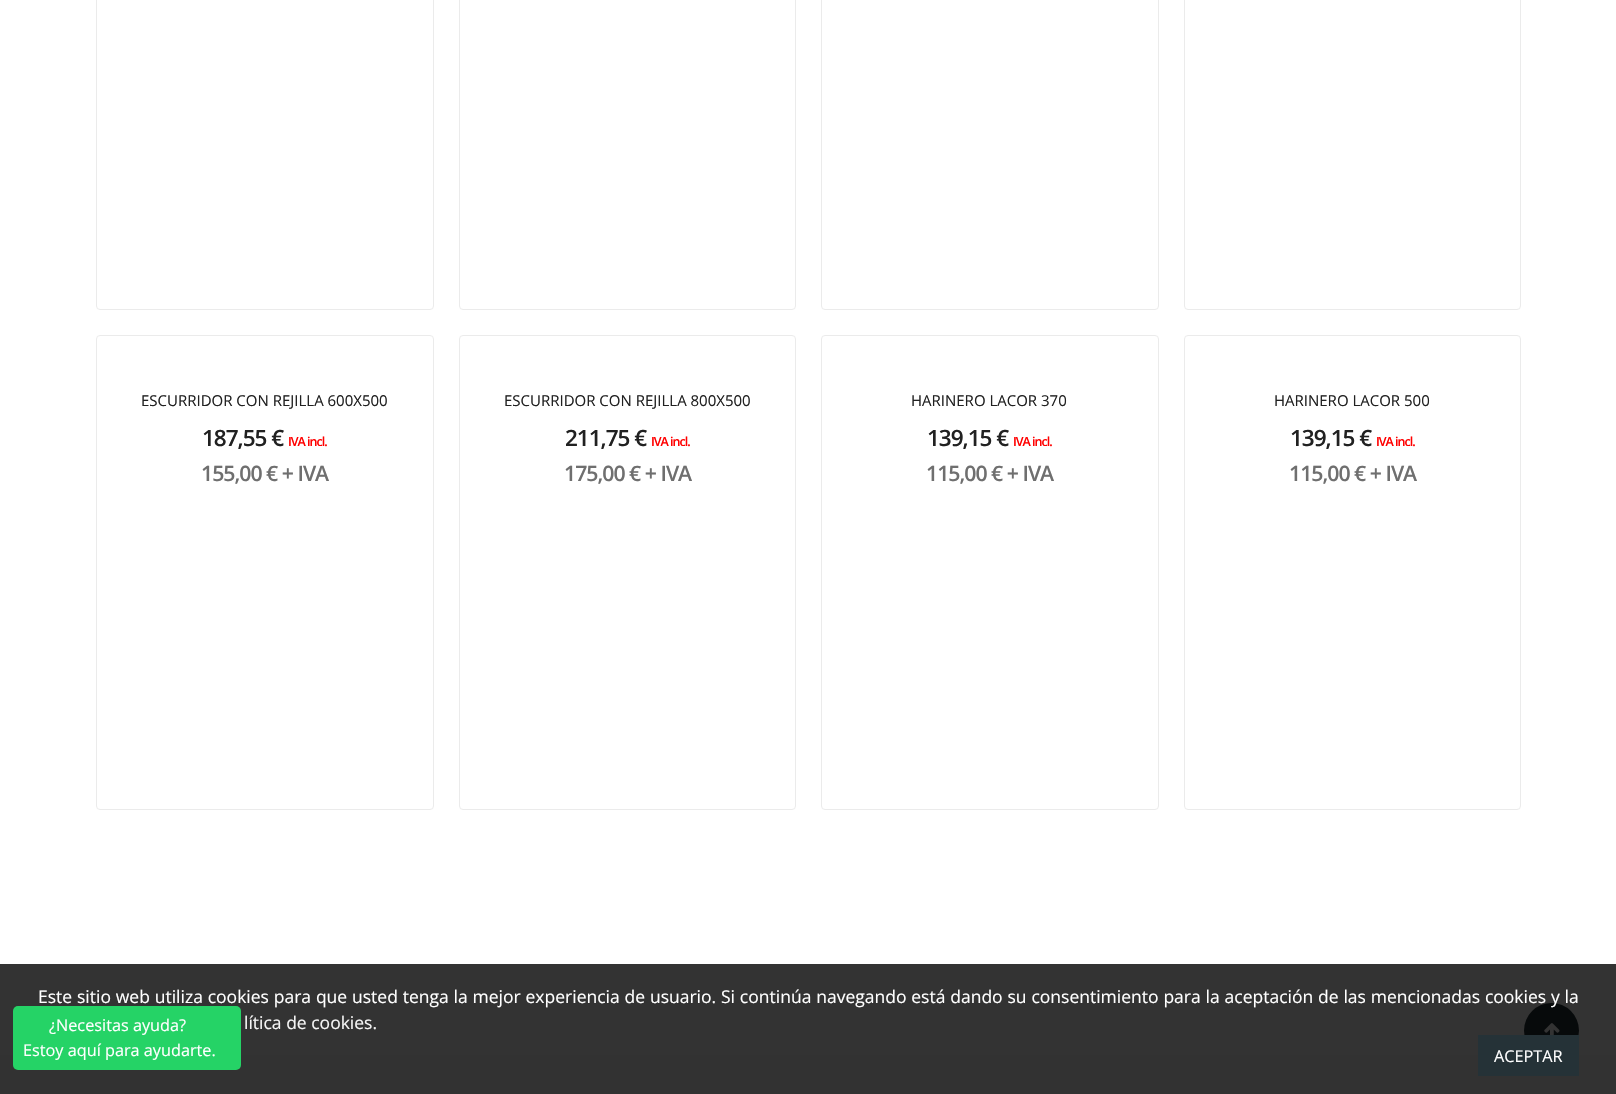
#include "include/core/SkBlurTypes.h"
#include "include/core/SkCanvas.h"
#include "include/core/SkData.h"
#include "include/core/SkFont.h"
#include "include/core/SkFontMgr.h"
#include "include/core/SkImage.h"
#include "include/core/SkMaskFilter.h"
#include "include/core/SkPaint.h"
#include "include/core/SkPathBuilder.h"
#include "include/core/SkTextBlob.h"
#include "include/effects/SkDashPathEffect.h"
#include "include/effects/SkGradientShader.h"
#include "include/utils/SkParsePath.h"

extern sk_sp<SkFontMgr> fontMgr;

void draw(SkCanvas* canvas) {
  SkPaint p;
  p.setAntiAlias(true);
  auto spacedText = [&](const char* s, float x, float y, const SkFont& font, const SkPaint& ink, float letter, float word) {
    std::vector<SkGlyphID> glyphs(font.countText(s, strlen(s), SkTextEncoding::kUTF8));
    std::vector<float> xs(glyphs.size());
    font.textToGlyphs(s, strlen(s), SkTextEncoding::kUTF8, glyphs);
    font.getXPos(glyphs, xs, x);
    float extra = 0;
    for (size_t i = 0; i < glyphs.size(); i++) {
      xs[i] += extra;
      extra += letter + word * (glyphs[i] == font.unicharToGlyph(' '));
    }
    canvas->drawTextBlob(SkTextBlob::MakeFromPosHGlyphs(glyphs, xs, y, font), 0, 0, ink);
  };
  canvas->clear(SK_ColorWHITE);
  p.setColor(SkColorSetRGB(51, 51, 51));
  canvas->drawRect(SkRect::MakeLTRB(0, 964, 1616, 1055), p);
  p.setStyle(SkPaint::kStroke_Style);
  p.setStrokeWidth(1);
  p.setColor(SkColorSetRGB(235, 235, 235));
  canvas->drawRoundRect(SkRect::MakeLTRB(96.5f, -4.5f, 433.5f, 309.5f), 3.5f, 3.5f, p);
  canvas->drawRoundRect(SkRect::MakeLTRB(459.5f, -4.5f, 795.5f, 309.5f), 3.5f, 3.5f, p);
  canvas->drawRoundRect(SkRect::MakeLTRB(821.5f, -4.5f, 1158.5f, 309.5f), 3.5f, 3.5f, p);
  canvas->drawRoundRect(SkRect::MakeLTRB(1184.5f, -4.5f, 1520.5f, 309.5f), 3.5f, 3.5f, p);
  canvas->drawRoundRect(SkRect::MakeLTRB(96.5f, 335.5f, 433.5f, 809.5f), 3.5f, 3.5f, p);
  canvas->drawRoundRect(SkRect::MakeLTRB(459.5f, 335.5f, 795.5f, 809.5f), 3.5f, 3.5f, p);
  canvas->drawRoundRect(SkRect::MakeLTRB(821.5f, 335.5f, 1158.5f, 809.5f), 3.5f, 3.5f, p);
  canvas->drawRoundRect(SkRect::MakeLTRB(1184.5f, 335.5f, 1520.5f, 809.5f), 3.5f, 3.5f, p);
  p.setStyle(SkPaint::kFill_Style);
  p.setColor(SkColorSetRGB(50, 50, 50));
  canvas->drawRect(SkRect::MakeLTRB(0, 1055, 1616, 1094), p);
  p.setColor(SkColorSetRGB(7, 10, 11));
  canvas->drawCircle(1551.5f, 1030.5f, 27.5f, p);
  p.setColor(SkColorSetRGB(37, 50, 55));
  canvas->drawRect(SkRect::MakeLTRB(1478, 1035, 1579, 1076), p);
  canvas->drawImageRect(SkImages::DeferredFromEncodedData(SkData::MakeFromFileName("images/1.png")), SkRect::MakeLTRB(1544, 1023, 1560, 1035), SkSamplingOptions());
  SkFont font1(fontMgr->matchFamilyStyle("Open Sans", SkFontStyle::Normal()), 15);
  font1.setSubpixel(true);
  p.setColor(SkColorSetRGB(33, 33, 33));
  canvas->drawString("ESCURRIDOR CON REJILLA 600X500", 141, 406, font1, p);
  SkFont font2(fontMgr->matchFamilyStyle("Open Sans", SkFontStyle(600, SkFontStyle::kNormal_Width, SkFontStyle::kUpright_Slant)), 22.5f);
  font2.setSubpixel(true);
  spacedText("187,55 €", 202, 446, font2, p, -1, 0);
  SkFont font3(fontMgr->matchFamilyStyle("Open Sans", SkFontStyle(600, SkFontStyle::kNormal_Width, SkFontStyle::kUpright_Slant)), 12.5f);
  font3.setSubpixel(true);
  p.setColor(SkColorSetRGB(255, 0, 0));
  spacedText("IVA incl.", 288, 446, font3, p, -1, 0);
  SkFont font4(fontMgr->matchFamilyStyle("Open Sans", SkFontStyle(600, SkFontStyle::kNormal_Width, SkFontStyle::kUpright_Slant)), 21.25f);
  font4.setSubpixel(true);
  p.setColor(SkColorSetRGB(111, 111, 111));
  spacedText("155,00 € + IVA", 201, 481, font4, p, -1, 0);
  p.setColor(SkColorSetRGB(33, 33, 33));
  canvas->drawString("ESCURRIDOR CON REJILLA 800X500", 504, 406, font1, p);
  spacedText("211,75 €", 565, 446, font2, p, -1, 0);
  p.setColor(SkColorSetRGB(255, 0, 0));
  spacedText("IVA incl.", 651, 446, font3, p, -1, 0);
  p.setColor(SkColorSetRGB(111, 111, 111));
  spacedText("175,00 € + IVA", 564, 481, font4, p, -1, 0);
  p.setColor(SkColorSetRGB(33, 33, 33));
  canvas->drawString("HARINERO LACOR 370", 911, 406, font1, p);
  spacedText("139,15 €", 927, 446, font2, p, -1, 0);
  p.setColor(SkColorSetRGB(255, 0, 0));
  spacedText("IVA incl.", 1013, 446, font3, p, -1, 0);
  p.setColor(SkColorSetRGB(111, 111, 111));
  spacedText("115,00 € + IVA", 926, 481, font4, p, -1, 0);
  p.setColor(SkColorSetRGB(33, 33, 33));
  canvas->drawString("HARINERO LACOR 500", 1274, 406, font1, p);
  spacedText("139,15 €", 1290, 446, font2, p, -1, 0);
  p.setColor(SkColorSetRGB(255, 0, 0));
  spacedText("IVA incl.", 1376, 446, font3, p, -1, 0);
  p.setColor(SkColorSetRGB(111, 111, 111));
  spacedText("115,00 € + IVA", 1289, 481, font4, p, -1, 0);
  SkFont font5(fontMgr->matchFamilyStyle("Open Sans", SkFontStyle::Normal()), 17.5f);
  font5.setSubpixel(true);
  p.setColor(SK_ColorWHITE);
  spacedText("Este sitio web utiliza cookies para que usted tenga la mejor experiencia de usuario. Si continúa navegando está dando su consentimiento para la aceptación de las mencionadas cookies y la", 38, 1003, font5, p, 0, 0.3f);
  p.setColor(SkColorSetRGB(245, 245, 245));
  canvas->drawString("lítica de cookies.", 244, 1029, font5, p);
  SkFont font6(fontMgr->matchFamilyStyle("Open Sans", SkFontStyle::Normal()), 16.25f);
  font6.setSubpixel(true);
  p.setColor(SK_ColorWHITE);
  canvas->drawString("ACEPTAR", 1494, 1062, font6, p);
  p.setColor(SkColorSetRGB(37, 211, 102));
  canvas->drawRoundRect(SkRect::MakeLTRB(13, 1006, 241, 1070), 5, 5, p);
  p.setColor(SK_ColorWHITE);
  canvas->drawString("¿Necesitas ayuda?", 49, 1031, font6, p);
  canvas->drawString("Estoy aquí para ayudarte.", 23, 1056, font6, p);
}
